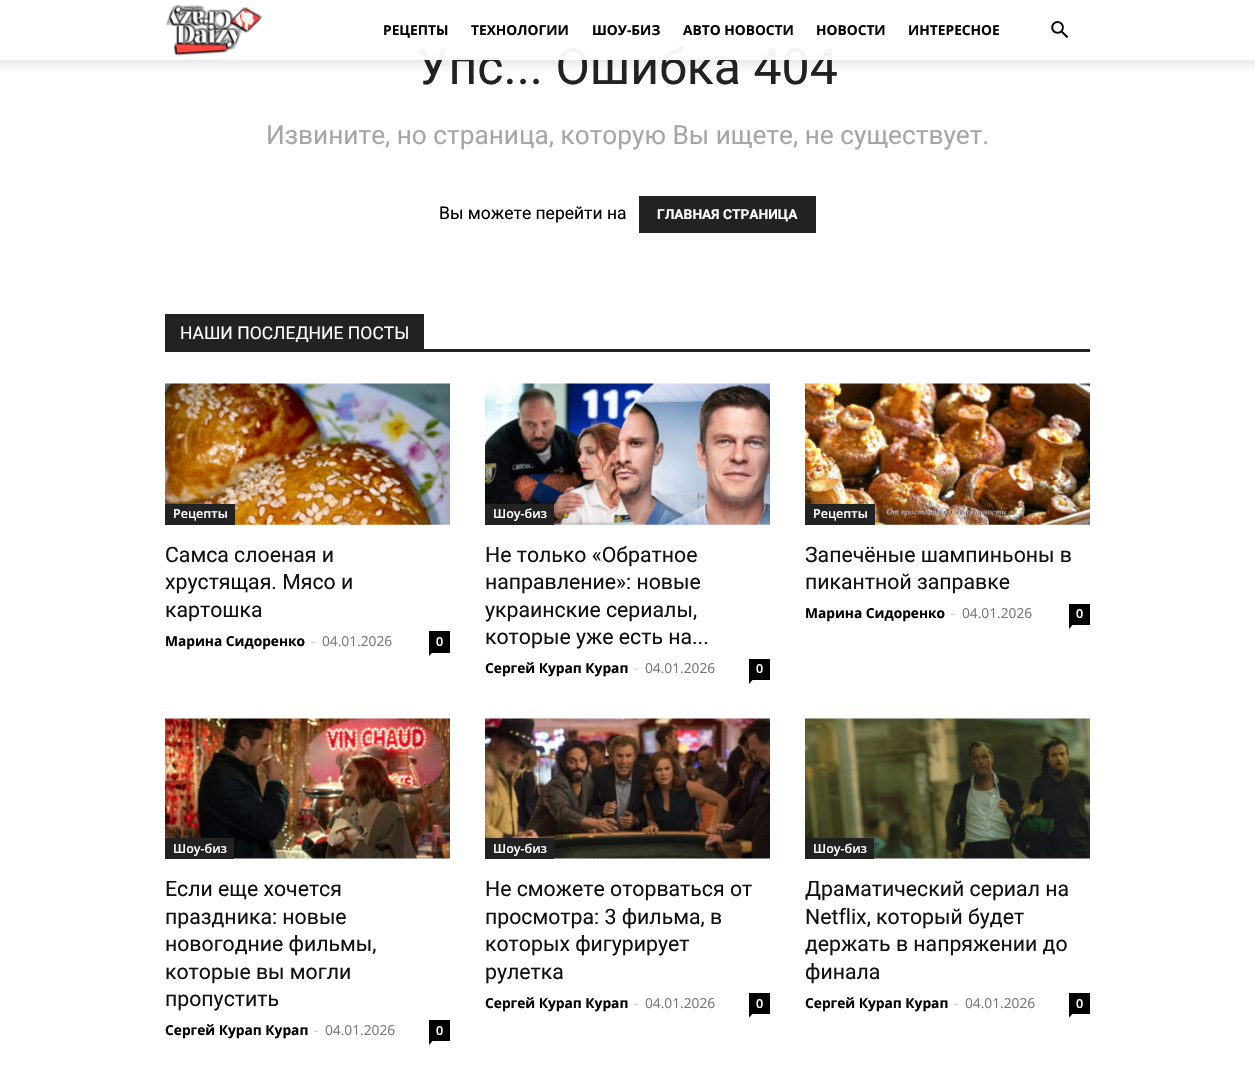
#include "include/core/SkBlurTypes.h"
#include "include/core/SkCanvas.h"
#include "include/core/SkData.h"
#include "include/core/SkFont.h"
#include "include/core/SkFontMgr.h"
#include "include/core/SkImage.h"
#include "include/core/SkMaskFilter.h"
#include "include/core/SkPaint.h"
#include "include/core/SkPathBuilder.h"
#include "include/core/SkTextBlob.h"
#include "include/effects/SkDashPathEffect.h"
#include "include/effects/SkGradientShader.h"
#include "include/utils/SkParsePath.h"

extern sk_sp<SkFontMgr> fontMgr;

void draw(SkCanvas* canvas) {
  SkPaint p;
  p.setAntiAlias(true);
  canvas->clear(SK_ColorWHITE);
  canvas->drawImageRect(SkImages::DeferredFromEncodedData(SkData::MakeFromFileName("images/1.png")), SkRect::MakeLTRB(166, 4, 263, 56), SkSamplingOptions());
  canvas->drawImageRect(SkImages::DeferredFromEncodedData(SkData::MakeFromFileName("images/2.png")), SkRect::MakeLTRB(1051, 21, 1068, 38), SkSamplingOptions());
  p.setColor(SkColorSetRGB(34, 34, 34));
  canvas->drawRect(SkRect::MakeLTRB(639, 196, 816, 233), p);
  canvas->drawRect(SkRect::MakeLTRB(165, 349, 1090, 352), p);
  canvas->drawRect(SkRect::MakeLTRB(165, 314, 424, 349), p);
  canvas->drawImageRect(SkImages::DeferredFromEncodedData(SkData::MakeFromFileName("images/4.png")), SkRect::MakeLTRB(165, 383, 450, 525), SkSamplingOptions());
  canvas->drawRect(SkRect::MakeLTRB(165, 504, 235, 525), p);
  p.setColor(SK_ColorBLACK);
  canvas->drawRect(SkRect::MakeLTRB(429, 631, 450, 653), p);
  canvas->drawPath(SkPathBuilder().moveTo(429, 652.5f).lineTo(432.5f, 652.5f).lineTo(429, 656).close().detach(), p);
  canvas->drawImageRect(SkImages::DeferredFromEncodedData(SkData::MakeFromFileName("images/5.png")), SkRect::MakeLTRB(485, 383, 770, 525), SkSamplingOptions());
  p.setColor(SkColorSetRGB(34, 34, 34));
  canvas->drawRect(SkRect::MakeLTRB(485, 504, 554, 525), p);
  p.setColor(SK_ColorBLACK);
  canvas->drawRect(SkRect::MakeLTRB(749, 659, 770, 680), p);
  canvas->drawPath(SkPathBuilder().moveTo(749, 680).lineTo(752.5f, 680).lineTo(749, 684).close().detach(), p);
  canvas->drawImageRect(SkImages::DeferredFromEncodedData(SkData::MakeFromFileName("images/6.png")), SkRect::MakeLTRB(805, 383, 1090, 525), SkSamplingOptions());
  p.setColor(SkColorSetRGB(34, 34, 34));
  canvas->drawRect(SkRect::MakeLTRB(805, 504, 875, 525), p);
  p.setColor(SK_ColorBLACK);
  canvas->drawRect(SkRect::MakeLTRB(1069, 604, 1090, 625), p);
  canvas->drawPath(SkPathBuilder().moveTo(1069, 625).lineTo(1072.5f, 625).lineTo(1069, 629).close().detach(), p);
  canvas->drawImageRect(SkImages::DeferredFromEncodedData(SkData::MakeFromFileName("images/7.png")), SkRect::MakeLTRB(165, 718, 450, 859), SkSamplingOptions());
  p.setColor(SkColorSetRGB(34, 34, 34));
  canvas->drawRect(SkRect::MakeLTRB(165, 838, 234, 859), p);
  p.setColor(SK_ColorBLACK);
  canvas->drawRect(SkRect::MakeLTRB(429, 1020, 450, 1041), p);
  canvas->drawPath(SkPathBuilder().moveTo(429, 1041).lineTo(432.5f, 1041).lineTo(429, 1045).close().detach(), p);
  canvas->drawImageRect(SkImages::DeferredFromEncodedData(SkData::MakeFromFileName("images/8.png")), SkRect::MakeLTRB(485, 718, 770, 859), SkSamplingOptions());
  p.setColor(SkColorSetRGB(34, 34, 34));
  canvas->drawRect(SkRect::MakeLTRB(485, 838, 554, 859), p);
  p.setColor(SK_ColorBLACK);
  canvas->drawRect(SkRect::MakeLTRB(749, 993, 770, 1014), p);
  canvas->drawPath(SkPathBuilder().moveTo(749, 1014).lineTo(752.5f, 1014).lineTo(749, 1017.5f).close().detach(), p);
  canvas->drawImageRect(SkImages::DeferredFromEncodedData(SkData::MakeFromFileName("images/9.png")), SkRect::MakeLTRB(805, 718, 1090, 859), SkSamplingOptions());
  p.setColor(SkColorSetRGB(34, 34, 34));
  canvas->drawRect(SkRect::MakeLTRB(805, 838, 874, 859), p);
  p.setColor(SK_ColorBLACK);
  canvas->drawRect(SkRect::MakeLTRB(1069, 993, 1090, 1014), p);
  canvas->drawPath(SkPathBuilder().moveTo(1069, 1014).lineTo(1072.5f, 1014).lineTo(1069, 1017.5f).close().detach(), p);
  SkFont font1(fontMgr->matchFamilyStyle("Open Sans", SkFontStyle::Bold()), 13.75f);
  font1.setSubpixel(true);
  canvas->drawString("РЕЦЕПТЫ", 383, 35, font1, p);
  canvas->drawString("ТЕХНОЛОГИИ", 471, 35, font1, p);
  canvas->drawString("ШОУ-БИЗ", 592, 35, font1, p);
  canvas->drawString("АВТО НОВОСТИ", 683, 35, font1, p);
  canvas->drawString("НОВОСТИ", 816, 35, font1, p);
  canvas->drawString("ИНТЕРЕСНОЕ", 908, 35, font1, p);
  SkFont font2(fontMgr->matchFamilyStyle("Roboto", SkFontStyle::Normal()), 50);
  font2.setSubpixel(true);
  p.setColor(SkColorSetRGB(34, 34, 34));
  canvas->drawString("Упс... Ошибка 404", 417, 84, font2, p);
  canvas->drawImageRect(SkImages::DeferredFromEncodedData(SkData::MakeFromFileName("images/3.png")), SkRect::MakeLTRB(0, 60, 1255, 71), SkSamplingOptions());
  p.setColor(SkColorSetARGB(242, 255, 255, 255));
  canvas->drawRect(SkRect::MakeLTRB(419, 46, 832, 60), p);
  SkFont font3(fontMgr->matchFamilyStyle("Roboto", SkFontStyle::Normal()), 26.25f);
  font3.setSubpixel(true);
  p.setColor(SkColorSetRGB(166, 166, 166));
  canvas->drawString("Извините, но страница, которую Вы ищете, не существует.", 266, 144, font3, p);
  SkFont font4(fontMgr->matchFamilyStyle("Roboto", SkFontStyle::Normal()), 17.5f);
  font4.setSubpixel(true);
  p.setColor(SK_ColorBLACK);
  canvas->drawString("Вы можете перейти на", 439, 219, font4, p);
  SkFont font5(fontMgr->matchFamilyStyle("Roboto", SkFontStyle::Bold()), 13.75f);
  font5.setSubpixel(true);
  p.setColor(SK_ColorWHITE);
  canvas->drawString("ГЛАВНАЯ СТРАНИЦА", 657, 219, font5, p);
  canvas->drawString("НАШИ ПОСЛЕДНИЕ ПОСТЫ", 180, 339, font4, p);
  SkFont font6(fontMgr->matchFamilyStyle("Open Sans", SkFontStyle(600, SkFontStyle::kNormal_Width, SkFontStyle::kUpright_Slant)), 12.5f);
  font6.setSubpixel(true);
  canvas->drawString("Рецепты", 173, 518, font6, p);
  SkFont font7(fontMgr->matchFamilyStyle("Roboto", SkFontStyle::Normal()), 21.25f);
  font7.setSubpixel(true);
  p.setColor(SkColorSetRGB(17, 17, 17));
  canvas->drawString("Самса слоеная и", 165, 562, font7, p);
  canvas->drawString("хрустящая. Мясо и", 165, 589, font7, p);
  canvas->drawString("картошка", 165, 617, font7, p);
  p.setColor(SK_ColorBLACK);
  canvas->drawString("Марина Сидоренко", 165, 646, font1, p);
  SkFont font8(fontMgr->matchFamilyStyle("Open Sans", SkFontStyle::Normal()), 13.75f);
  font8.setSubpixel(true);
  p.setColor(SkColorSetRGB(204, 204, 204));
  canvas->drawString("-", 311, 646, font8, p);
  p.setColor(SkColorSetRGB(118, 118, 118));
  canvas->drawString("04.01.2026", 322, 646, font8, p);
  p.setColor(SK_ColorWHITE);
  canvas->drawString("0", 436, 646, font6, p);
  canvas->drawString("Шоу-биз", 493, 518, font6, p);
  p.setColor(SkColorSetRGB(17, 17, 17));
  canvas->drawString("Не только «Обратное", 485, 562, font7, p);
  canvas->drawString("направление»: новые", 485, 589, font7, p);
  canvas->drawString("украинские сериалы,", 485, 617, font7, p);
  canvas->drawString("которые уже есть на...", 485, 644, font7, p);
  p.setColor(SK_ColorBLACK);
  canvas->drawString("Сергей Курап Курап", 485, 673, font1, p);
  p.setColor(SkColorSetRGB(204, 204, 204));
  canvas->drawString("-", 634, 673, font8, p);
  p.setColor(SkColorSetRGB(118, 118, 118));
  canvas->drawString("04.01.2026", 645, 673, font8, p);
  p.setColor(SK_ColorWHITE);
  canvas->drawString("0", 756, 673, font6, p);
  canvas->drawString("Рецепты", 813, 518, font6, p);
  p.setColor(SkColorSetRGB(17, 17, 17));
  canvas->drawString("Запечёные шампиньоны в", 805, 562, font7, p);
  canvas->drawString("пикантной заправке", 805, 589, font7, p);
  p.setColor(SK_ColorBLACK);
  canvas->drawString("Марина Сидоренко", 805, 618, font1, p);
  p.setColor(SkColorSetRGB(204, 204, 204));
  canvas->drawString("-", 951, 618, font8, p);
  p.setColor(SkColorSetRGB(118, 118, 118));
  canvas->drawString("04.01.2026", 962, 618, font8, p);
  p.setColor(SK_ColorWHITE);
  canvas->drawString("0", 1076, 618, font6, p);
  canvas->drawString("Шоу-биз", 173, 853, font6, p);
  p.setColor(SkColorSetRGB(17, 17, 17));
  canvas->drawString("Если еще хочется", 165, 896, font7, p);
  canvas->drawString("праздника: новые", 165, 924, font7, p);
  canvas->drawString("новогодние фильмы,", 165, 951, font7, p);
  canvas->drawString("которые вы могли", 165, 979, font7, p);
  canvas->drawString("пропустить", 165, 1006, font7, p);
  p.setColor(SK_ColorBLACK);
  canvas->drawString("Сергей Курап Курап", 165, 1035, font1, p);
  p.setColor(SkColorSetRGB(204, 204, 204));
  canvas->drawString("-", 314, 1035, font8, p);
  p.setColor(SkColorSetRGB(118, 118, 118));
  canvas->drawString("04.01.2026", 325, 1035, font8, p);
  p.setColor(SK_ColorWHITE);
  canvas->drawString("0", 436, 1035, font6, p);
  canvas->drawString("Шоу-биз", 493, 853, font6, p);
  p.setColor(SkColorSetRGB(17, 17, 17));
  canvas->drawString("Не сможете оторваться от", 485, 896, font7, p);
  canvas->drawString("просмотра: 3 фильма, в", 485, 924, font7, p);
  canvas->drawString("которых фигурирует", 485, 951, font7, p);
  canvas->drawString("рулетка", 485, 979, font7, p);
  p.setColor(SK_ColorBLACK);
  canvas->drawString("Сергей Курап Курап", 485, 1008, font1, p);
  p.setColor(SkColorSetRGB(204, 204, 204));
  canvas->drawString("-", 634, 1008, font8, p);
  p.setColor(SkColorSetRGB(118, 118, 118));
  canvas->drawString("04.01.2026", 645, 1008, font8, p);
  p.setColor(SK_ColorWHITE);
  canvas->drawString("0", 756, 1008, font6, p);
  canvas->drawString("Шоу-биз", 813, 853, font6, p);
  p.setColor(SkColorSetRGB(17, 17, 17));
  canvas->drawString("Драматический сериал на", 805, 896, font7, p);
  canvas->drawString("Netflix, который будет", 805, 924, font7, p);
  canvas->drawString("держать в напряжении до", 805, 951, font7, p);
  canvas->drawString("финала", 805, 979, font7, p);
  p.setColor(SK_ColorBLACK);
  canvas->drawString("Сергей Курап Курап", 805, 1008, font1, p);
  p.setColor(SkColorSetRGB(204, 204, 204));
  canvas->drawString("-", 954, 1008, font8, p);
  p.setColor(SkColorSetRGB(118, 118, 118));
  canvas->drawString("04.01.2026", 965, 1008, font8, p);
  p.setColor(SK_ColorWHITE);
  canvas->drawString("0", 1076, 1008, font6, p);
}
